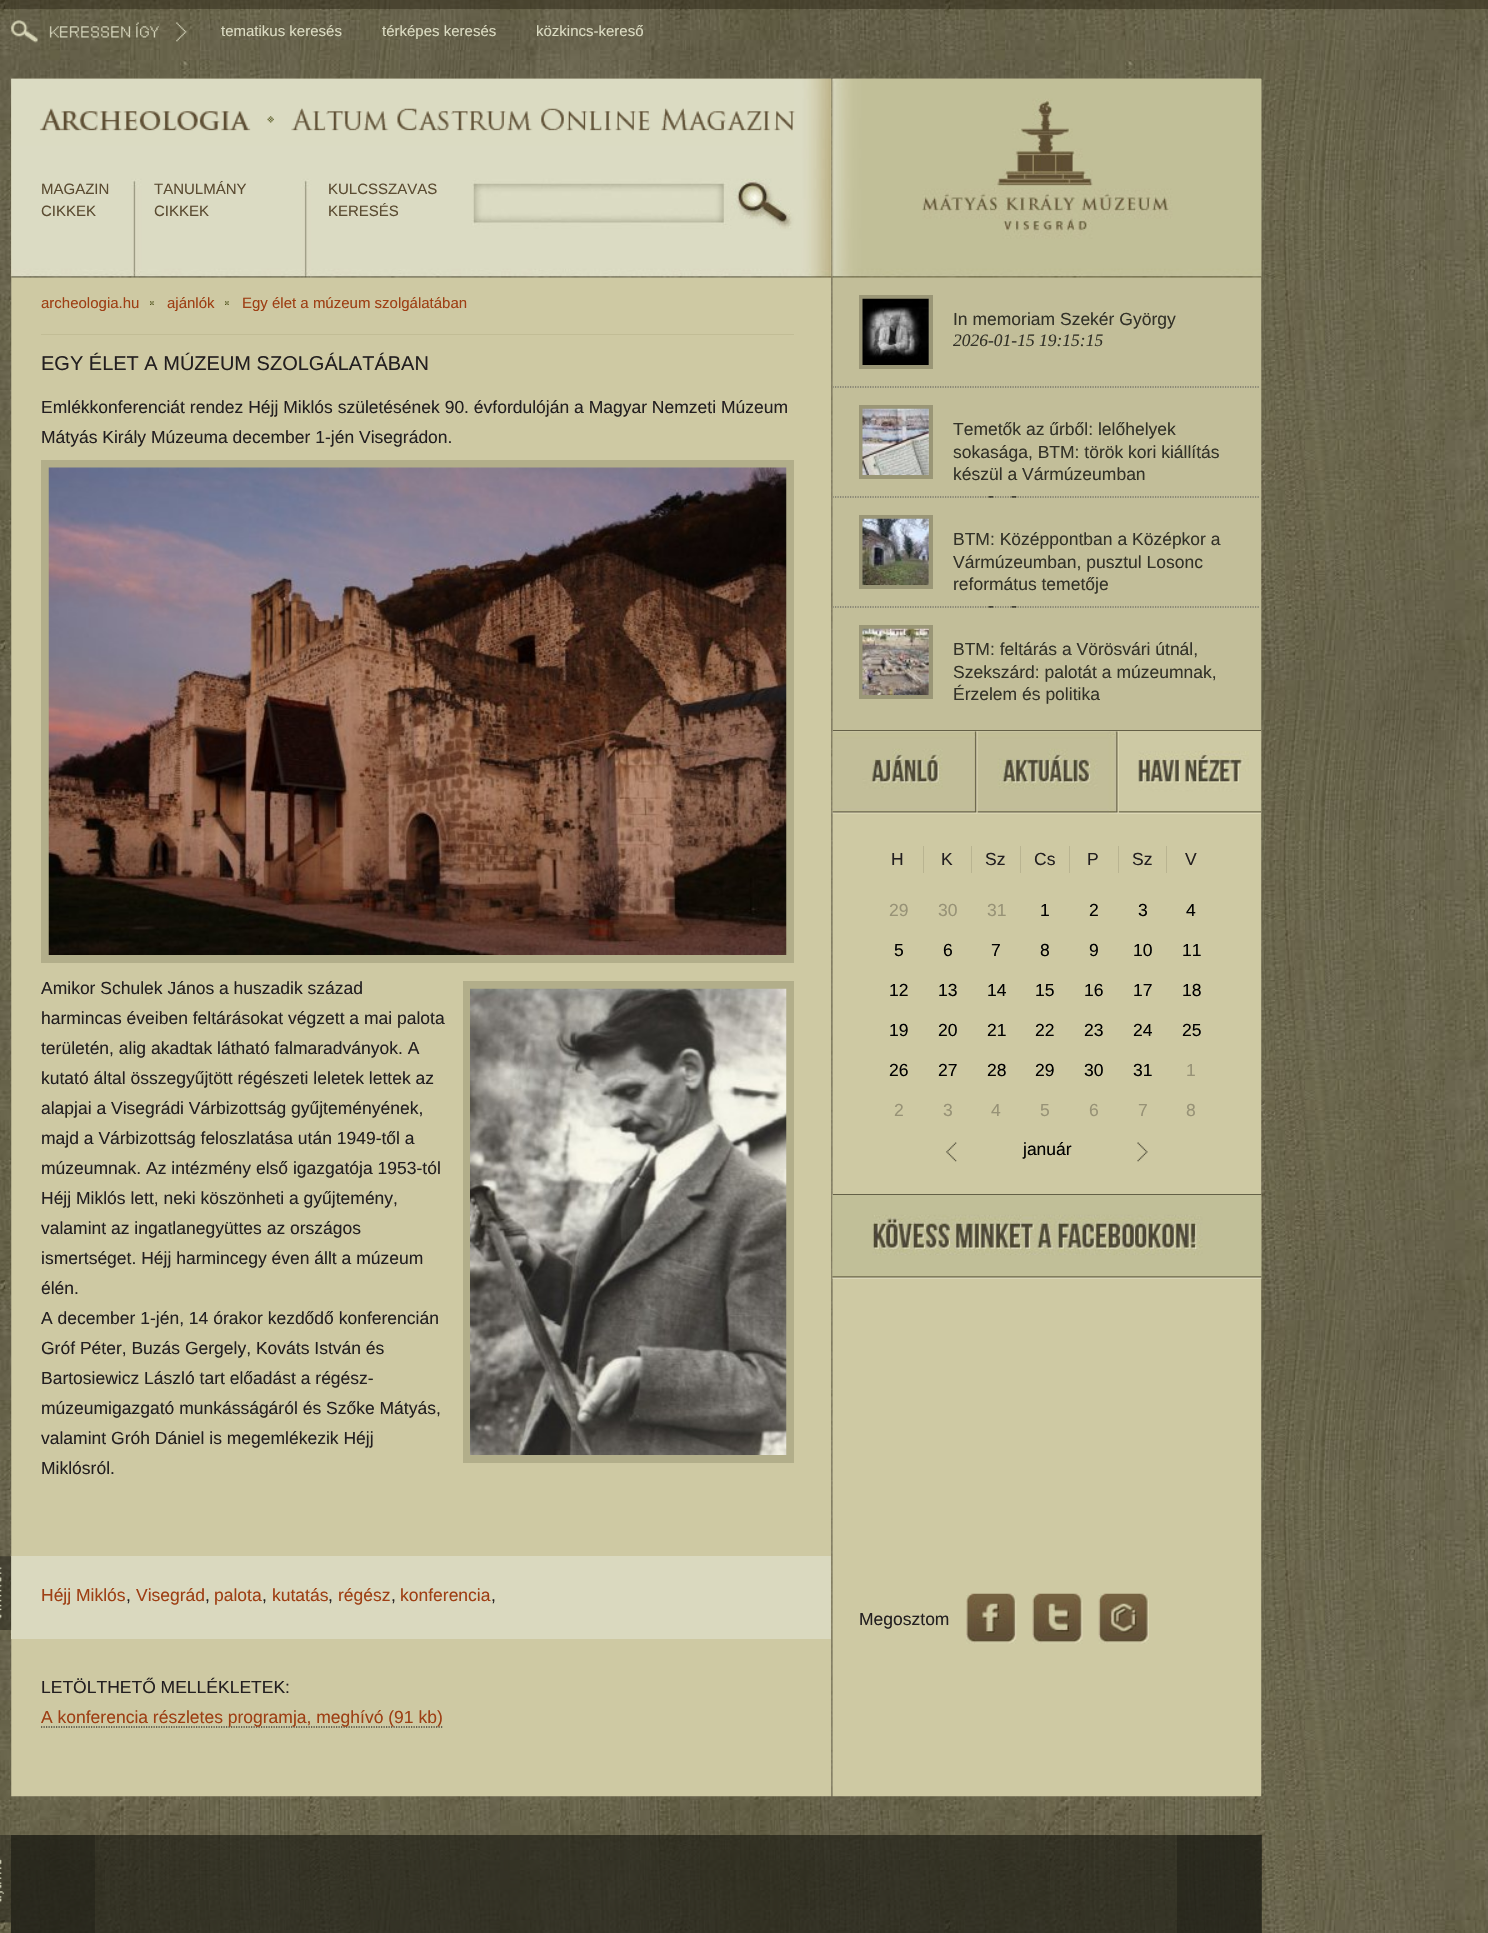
#include "include/core/SkBlurTypes.h"
#include "include/core/SkCanvas.h"
#include "include/core/SkData.h"
#include "include/core/SkFont.h"
#include "include/core/SkFontMgr.h"
#include "include/core/SkImage.h"
#include "include/core/SkMaskFilter.h"
#include "include/core/SkPaint.h"
#include "include/core/SkPathBuilder.h"
#include "include/core/SkTextBlob.h"
#include "include/effects/SkDashPathEffect.h"
#include "include/effects/SkGradientShader.h"
#include "include/utils/SkParsePath.h"

extern sk_sp<SkFontMgr> fontMgr;

void draw(SkCanvas* canvas) {
  SkPaint p;
  p.setAntiAlias(true);
  canvas->clear(SK_ColorWHITE);
  canvas->drawImageRect(SkImages::DeferredFromEncodedData(SkData::MakeFromFileName("images/1.png")), SkRect::MakeLTRB(0, 0, 1488, 1933), SkSamplingOptions());
  p.setColor(SkColorSetARGB(128, 44, 38, 22));
  canvas->drawRect(SkRect::MakeLTRB(0, 0, 1488, 9), p);
  canvas->drawImageRect(SkImages::DeferredFromEncodedData(SkData::MakeFromFileName("images/2.png")), SkRect::MakeLTRB(11, 20, 187, 43), SkSamplingOptions());
  canvas->drawImageRect(SkImages::DeferredFromEncodedData(SkData::MakeFromFileName("images/3.png")), SkRect::MakeLTRB(11, 78, 1262, 1797), SkSamplingOptions());
  canvas->drawImageRect(SkImages::DeferredFromEncodedData(SkData::MakeFromFileName("images/4.png")), SkRect::MakeLTRB(11, 78, 832, 278), SkSamplingOptions());
  p.setColor(SkColorSetRGB(194, 189, 150));
  canvas->drawRect(SkRect::MakeLTRB(41, 334, 794, 335), p);
  canvas->drawImageRect(SkImages::DeferredFromEncodedData(SkData::MakeFromFileName("images/5.png")), SkRect::MakeLTRB(150, 301, 154, 305), SkSamplingOptions());
  canvas->drawImageRect(SkImages::DeferredFromEncodedData(SkData::MakeFromFileName("images/5.png")), SkRect::MakeLTRB(225, 301, 229, 305), SkSamplingOptions());
  p.setStyle(SkPaint::kStroke_Style);
  p.setStrokeWidth(8);
  p.setColor(SkColorSetRGB(178, 174, 138));
  canvas->drawRect(SkRect::MakeLTRB(45, 464, 790, 959), p);
  canvas->drawImageRect(SkImages::DeferredFromEncodedData(SkData::MakeFromFileName("images/6.png")), SkRect::MakeLTRB(48, 467, 787, 955), SkSamplingOptions());
  canvas->drawRect(SkRect::MakeLTRB(467, 985, 790, 1459), p);
  canvas->drawImageRect(SkImages::DeferredFromEncodedData(SkData::MakeFromFileName("images/7.png")), SkRect::MakeLTRB(470, 988, 787, 1455), SkSamplingOptions());
  p.setStyle(SkPaint::kFill_Style);
  p.setColor(SkColorSetRGB(218, 217, 191));
  canvas->drawRect(SkRect::MakeLTRB(11, 1556, 831, 1639), p);
  canvas->drawImageRect(SkImages::DeferredFromEncodedData(SkData::MakeFromFileName("images/8.png")), SkRect::MakeLTRB(0, 1556, 12, 1630), SkSamplingOptions());
  p.setStyle(SkPaint::kStroke_Style);
  p.setStrokeWidth(1.2f);
  p.setColor(SK_ColorBLACK);
  p.setPathEffect(SkDashPathEffect::Make({{1.25f, 1.25f}}, 0));
  canvas->drawPath(SkPathBuilder().moveTo(41, 1727).lineTo(442.5f, 1727).detach(), p);
  p.setPathEffect(nullptr);
  canvas->drawImageRect(SkImages::DeferredFromEncodedData(SkData::MakeFromFileName("images/9.png")), SkRect::MakeLTRB(832, 78, 1262, 278), SkSamplingOptions());
  p.setStyle(SkPaint::kFill_Style);
  p.setColor(SkColorSetRGB(194, 190, 153));
  canvas->drawRect(SkRect::MakeLTRB(833, 278, 1261, 730), p);
  canvas->save();
  canvas->clipRect(SkRect::MakeLTRB(833, 278, 1260, 715));
  p.setStyle(SkPaint::kStroke_Style);
  p.setColor(SkColorSetRGB(84, 83, 83));
  p.setPathEffect(SkDashPathEffect::Make({{1.25f, 1.25f}}, 0));
  canvas->drawPath(SkPathBuilder().moveTo(832.5f, 387).lineTo(1261, 387).detach(), p);
  p.setPathEffect(nullptr);
  canvas->restore();
  p.setStrokeWidth(4);
  p.setColor(SkColorSetRGB(154, 150, 118));
  canvas->drawRect(SkRect::MakeLTRB(861, 297, 931, 367), p);
  canvas->drawImageRect(SkImages::DeferredFromEncodedData(SkData::MakeFromFileName("images/10.png")), SkRect::MakeLTRB(862, 298, 929, 365), SkSamplingOptions());
  canvas->save();
  canvas->clipRect(SkRect::MakeLTRB(833, 278, 1260, 715));
  p.setStrokeWidth(1.2f);
  p.setColor(SkColorSetRGB(84, 83, 83));
  p.setPathEffect(SkDashPathEffect::Make({{1.25f, 1.25f}}, 0));
  canvas->drawPath(SkPathBuilder().moveTo(832.5f, 497).lineTo(1261, 497).detach(), p);
  p.setPathEffect(nullptr);
  canvas->restore();
  p.setStrokeWidth(4);
  p.setColor(SkColorSetRGB(154, 150, 118));
  canvas->drawRect(SkRect::MakeLTRB(861, 407, 931, 477), p);
  canvas->drawImageRect(SkImages::DeferredFromEncodedData(SkData::MakeFromFileName("images/11.png")), SkRect::MakeLTRB(862, 408, 929, 475), SkSamplingOptions());
  canvas->save();
  canvas->clipRect(SkRect::MakeLTRB(833, 278, 1260, 715));
  p.setStrokeWidth(1.2f);
  p.setColor(SkColorSetRGB(84, 83, 83));
  p.setPathEffect(SkDashPathEffect::Make({{1.25f, 1.25f}}, 0));
  canvas->drawPath(SkPathBuilder().moveTo(832.5f, 607).lineTo(1261, 607).detach(), p);
  p.setPathEffect(nullptr);
  canvas->restore();
  p.setStrokeWidth(4);
  p.setColor(SkColorSetRGB(154, 150, 118));
  canvas->drawRect(SkRect::MakeLTRB(861, 517, 931, 587), p);
  canvas->drawImageRect(SkImages::DeferredFromEncodedData(SkData::MakeFromFileName("images/12.png")), SkRect::MakeLTRB(862, 518, 929, 585), SkSamplingOptions());
  canvas->drawRect(SkRect::MakeLTRB(861, 627, 931, 697), p);
  canvas->drawImageRect(SkImages::DeferredFromEncodedData(SkData::MakeFromFileName("images/13.png")), SkRect::MakeLTRB(862, 628, 929, 695), SkSamplingOptions());
  p.setStyle(SkPaint::kFill_Style);
  p.setColor(SkColorSetRGB(100, 96, 71));
  canvas->drawRect(SkRect::MakeLTRB(833, 730, 1261, 731), p);
  canvas->drawImageRect(SkImages::DeferredFromEncodedData(SkData::MakeFromFileName("images/14.png")), SkRect::MakeLTRB(832, 731, 978, 814), SkSamplingOptions());
  canvas->drawImageRect(SkImages::DeferredFromEncodedData(SkData::MakeFromFileName("images/15.png")), SkRect::MakeLTRB(977, 731, 1119, 814), SkSamplingOptions());
  canvas->drawImageRect(SkImages::DeferredFromEncodedData(SkData::MakeFromFileName("images/16.png")), SkRect::MakeLTRB(1118, 732, 1262, 814), SkSamplingOptions());
  p.setColor(SkColorSetRGB(185, 180, 145));
  canvas->drawRect(SkRect::MakeLTRB(923, 846, 924, 873), p);
  canvas->drawRect(SkRect::MakeLTRB(971, 846, 972, 873), p);
  canvas->drawRect(SkRect::MakeLTRB(1020, 846, 1021, 873), p);
  canvas->drawRect(SkRect::MakeLTRB(1069, 846, 1070, 873), p);
  canvas->drawRect(SkRect::MakeLTRB(1118, 846, 1119, 873), p);
  canvas->drawRect(SkRect::MakeLTRB(1166, 846, 1167, 873), p);
  canvas->drawImageRect(SkImages::DeferredFromEncodedData(SkData::MakeFromFileName("images/17.png")), SkRect::MakeLTRB(946, 1142, 957, 1162), SkSamplingOptions());
  canvas->drawImageRect(SkImages::DeferredFromEncodedData(SkData::MakeFromFileName("images/18.png")), SkRect::MakeLTRB(1137, 1142, 1148, 1162), SkSamplingOptions());
  p.setColor(SkColorSetRGB(100, 96, 71));
  canvas->drawRect(SkRect::MakeLTRB(833, 1194, 1261, 1195), p);
  canvas->drawImageRect(SkImages::DeferredFromEncodedData(SkData::MakeFromFileName("images/19.png")), SkRect::MakeLTRB(832, 1195, 1262, 1279), SkSamplingOptions());
  canvas->drawImageRect(SkImages::DeferredFromEncodedData(SkData::MakeFromFileName("images/20.png")), SkRect::MakeLTRB(966, 1593, 1017, 1644), SkSamplingOptions());
  canvas->drawImageRect(SkImages::DeferredFromEncodedData(SkData::MakeFromFileName("images/21.png")), SkRect::MakeLTRB(1032, 1593, 1083, 1644), SkSamplingOptions());
  canvas->drawImageRect(SkImages::DeferredFromEncodedData(SkData::MakeFromFileName("images/22.png")), SkRect::MakeLTRB(1098, 1593, 1149, 1644), SkSamplingOptions());
  p.setColor(SkColorSetARGB(166, 25, 25, 17));
  canvas->drawRect(SkRect::MakeLTRB(11, 1835, 1262, 1933), p);
  canvas->drawImageRect(SkImages::DeferredFromEncodedData(SkData::MakeFromFileName("images/23.png")), SkRect::MakeLTRB(0, 1835, 11, 1923), SkSamplingOptions());
  p.setColor(SkColorSetARGB(102, 25, 25, 17));
  canvas->drawRect(SkRect::MakeLTRB(11, 1835, 95, 1933), p);
  canvas->drawRect(SkRect::MakeLTRB(1177, 1835, 1261, 1933), p);
  SkFont font1(fontMgr->matchFamilyStyle("Liberation Sans", SkFontStyle::Normal()), 15);
  font1.setSubpixel(true);
  p.setColor(SkColorSetRGB(219, 219, 194));
  canvas->drawString("tematikus keresés", 221, 36, font1, p);
  canvas->drawString("térképes keresés", 382, 36, font1, p);
  canvas->drawString("közkincs-kereső", 536, 36, font1, p);
  p.setColor(SkColorSetRGB(91, 76, 50));
  canvas->drawString("MAGAZIN", 41, 194, font1, p);
  canvas->drawString("CIKKEK", 41, 216, font1, p);
  canvas->drawString("TANULMÁNY", 154, 194, font1, p);
  canvas->drawString("CIKKEK", 154, 216, font1, p);
  canvas->drawString("KULCSSZAVAS", 328, 194, font1, p);
  canvas->drawString("KERESÉS", 328, 216, font1, p);
  p.setColor(SkColorSetRGB(158, 63, 20));
  canvas->drawString("archeologia.hu", 41, 308, font1, p);
  canvas->drawString("ajánlók", 167, 308, font1, p);
  canvas->drawString("Egy élet a múzeum szolgálatában", 242, 308, font1, p);
  SkFont font2(fontMgr->matchFamilyStyle("Liberation Sans", SkFontStyle::Normal()), 20);
  font2.setSubpixel(true);
  p.setColor(SkColorSetRGB(35, 31, 32));
  canvas->drawString("EGY ÉLET A MÚZEUM SZOLGÁLATÁBAN", 41, 370, font2, p);
  SkFont font3(fontMgr->matchFamilyStyle("Liberation Sans", SkFontStyle::Normal()), 17.5f);
  font3.setSubpixel(true);
  canvas->drawString("Emlékkonferenciát rendez Héjj Miklós születésének 90. évfordulóján a Magyar Nemzeti Múzeum", 41, 413, font3, p);
  canvas->drawString("Mátyás Király Múzeuma december 1-jén Visegrádon.", 41, 443, font3, p);
  canvas->drawString("Amikor Schulek János a huszadik század", 41, 994, font3, p);
  canvas->drawString("harmincas éveiben feltárásokat végzett a mai palota", 41, 1024, font3, p);
  canvas->drawString("területén, alig akadtak látható falmaradványok. A", 41, 1054, font3, p);
  canvas->drawString("kutató által összegyűjtött régészeti leletek lettek az", 41, 1084, font3, p);
  canvas->drawString("alapjai a Visegrádi Várbizottság gyűjteményének,", 41, 1114, font3, p);
  canvas->drawString("majd a Várbizottság feloszlatása után 1949-től a", 41, 1144, font3, p);
  canvas->drawString("múzeumnak. Az intézmény első igazgatója 1953-tól", 41, 1174, font3, p);
  canvas->drawString("Héjj Miklós lett, neki köszönheti a gyűjtemény,", 41, 1204, font3, p);
  canvas->drawString("valamint az ingatlanegyüttes az országos", 41, 1234, font3, p);
  canvas->drawString("ismertséget. Héjj harmincegy éven állt a múzeum", 41, 1264, font3, p);
  canvas->drawString("élén.", 41, 1294, font3, p);
  canvas->drawString("A december 1-jén, 14 órakor kezdődő konferencián", 41, 1324, font3, p);
  canvas->drawString("Gróf Péter, Buzás Gergely, Kováts István és", 41, 1354, font3, p);
  canvas->drawString("Bartosiewicz László tart előadást a régész-", 41, 1384, font3, p);
  canvas->drawString("múzeumigazgató munkásságáról és Szőke Mátyás,", 41, 1414, font3, p);
  canvas->drawString("valamint Gróh Dániel is megemlékezik Héjj", 41, 1444, font3, p);
  canvas->drawString("Miklósról.", 41, 1474, font3, p);
  p.setColor(SkColorSetRGB(158, 63, 20));
  canvas->drawString("Héjj Miklós", 41, 1601, font3, p);
  p.setColor(SkColorSetRGB(35, 31, 32));
  canvas->drawString(",", 126, 1601, font3, p);
  p.setColor(SkColorSetRGB(158, 63, 20));
  canvas->drawString("Visegrád", 136, 1601, font3, p);
  p.setColor(SkColorSetRGB(35, 31, 32));
  canvas->drawString(",", 205, 1601, font3, p);
  p.setColor(SkColorSetRGB(158, 63, 20));
  canvas->drawString("palota", 214, 1601, font3, p);
  p.setColor(SkColorSetRGB(35, 31, 32));
  canvas->drawString(",", 262, 1601, font3, p);
  p.setColor(SkColorSetRGB(158, 63, 20));
  canvas->drawString("kutatás", 272, 1601, font3, p);
  p.setColor(SkColorSetRGB(35, 31, 32));
  canvas->drawString(",", 328, 1601, font3, p);
  p.setColor(SkColorSetRGB(158, 63, 20));
  canvas->drawString("régész", 338, 1601, font3, p);
  p.setColor(SkColorSetRGB(35, 31, 32));
  canvas->drawString(",", 391, 1601, font3, p);
  p.setColor(SkColorSetRGB(158, 63, 20));
  canvas->drawString("konferencia", 400, 1601, font3, p);
  p.setColor(SkColorSetRGB(35, 31, 32));
  canvas->drawString(",", 491, 1601, font3, p);
  canvas->drawString("LETÖLTHETŐ MELLÉKLETEK:", 41, 1693, font3, p);
  p.setColor(SkColorSetRGB(158, 63, 20));
  canvas->drawString("A konferencia részletes programja, meghívó (91 kb)", 41, 1723, font3, p);
  p.setColor(SkColorSetRGB(51, 50, 40));
  canvas->drawString("In memoriam Szekér György", 953, 325, font3, p);
  SkFont font4(fontMgr->matchFamilyStyle("Liberation Serif", SkFontStyle::Italic()), 17.5f);
  font4.setSubpixel(true);
  canvas->drawString("2026-01-15 19:15:15", 953, 346, font4, p);
  canvas->drawString("Temetők az űrből: lelőhelyek", 953, 435, font3, p);
  canvas->drawString("sokasága, BTM: török kori kiállítás", 953, 458, font3, p);
  canvas->drawString("készül a Vármúzeumban", 953, 480, font3, p);
  canvas->drawString("-", 988, 501, font4, p);
  canvas->drawString("-", 1011, 501, font4, p);
  canvas->drawString("BTM: Középpontban a Középkor a", 953, 545, font3, p);
  canvas->drawString("Vármúzeumban, pusztul Losonc", 953, 568, font3, p);
  canvas->drawString("református temetője", 953, 590, font3, p);
  canvas->drawString("-", 988, 611, font4, p);
  canvas->drawString("-", 1011, 611, font4, p);
  canvas->drawString("BTM: feltárás a Vörösvári útnál,", 953, 655, font3, p);
  canvas->drawString("Szekszárd: palotát a múzeumnak,", 953, 678, font3, p);
  canvas->drawString("Érzelem és politika", 953, 700, font3, p);
  p.setColor(SkColorSetRGB(35, 31, 32));
  canvas->drawString("H", 891, 865, font3, p);
  canvas->drawString("K", 941, 865, font3, p);
  canvas->drawString("Sz", 985, 865, font3, p);
  canvas->drawString("Cs", 1034, 865, font3, p);
  canvas->drawString("P", 1087, 865, font3, p);
  canvas->drawString("Sz", 1132, 865, font3, p);
  canvas->drawString("V", 1185, 865, font3, p);
  p.setColor(SkColorSetRGB(151, 146, 118));
  canvas->drawString("29", 889, 916, font3, p);
  canvas->drawString("30", 938, 916, font3, p);
  canvas->drawString("31", 987, 916, font3, p);
  p.setColor(SK_ColorBLACK);
  canvas->drawString("1", 1040, 916, font3, p);
  canvas->drawString("2", 1089, 916, font3, p);
  canvas->drawString("3", 1138, 916, font3, p);
  canvas->drawString("4", 1186, 916, font3, p);
  canvas->drawString("5", 894, 956, font3, p);
  canvas->drawString("6", 943, 956, font3, p);
  canvas->drawString("7", 991, 956, font3, p);
  canvas->drawString("8", 1040, 956, font3, p);
  canvas->drawString("9", 1089, 956, font3, p);
  canvas->drawString("10", 1133, 956, font3, p);
  canvas->drawString("11", 1182, 956, font3, p);
  canvas->drawString("12", 889, 996, font3, p);
  canvas->drawString("13", 938, 996, font3, p);
  canvas->drawString("14", 987, 996, font3, p);
  canvas->drawString("15", 1035, 996, font3, p);
  canvas->drawString("16", 1084, 996, font3, p);
  canvas->drawString("17", 1133, 996, font3, p);
  canvas->drawString("18", 1182, 996, font3, p);
  canvas->drawString("19", 889, 1036, font3, p);
  canvas->drawString("20", 938, 1036, font3, p);
  canvas->drawString("21", 987, 1036, font3, p);
  canvas->drawString("22", 1035, 1036, font3, p);
  canvas->drawString("23", 1084, 1036, font3, p);
  canvas->drawString("24", 1133, 1036, font3, p);
  canvas->drawString("25", 1182, 1036, font3, p);
  canvas->drawString("26", 889, 1076, font3, p);
  canvas->drawString("27", 938, 1076, font3, p);
  canvas->drawString("28", 987, 1076, font3, p);
  canvas->drawString("29", 1035, 1076, font3, p);
  canvas->drawString("30", 1084, 1076, font3, p);
  canvas->drawString("31", 1133, 1076, font3, p);
  p.setColor(SkColorSetRGB(151, 146, 118));
  canvas->drawString("1", 1186, 1076, font3, p);
  canvas->drawString("2", 894, 1116, font3, p);
  canvas->drawString("3", 943, 1116, font3, p);
  canvas->drawString("4", 991, 1116, font3, p);
  canvas->drawString("5", 1040, 1116, font3, p);
  canvas->drawString("6", 1089, 1116, font3, p);
  canvas->drawString("7", 1138, 1116, font3, p);
  canvas->drawString("8", 1186, 1116, font3, p);
  p.setColor(SK_ColorBLACK);
  canvas->drawString("január", 1023, 1155, font3, p);
  p.setColor(SkColorSetRGB(35, 31, 32));
  canvas->drawString("Megosztom", 859, 1625, font3, p);
}
